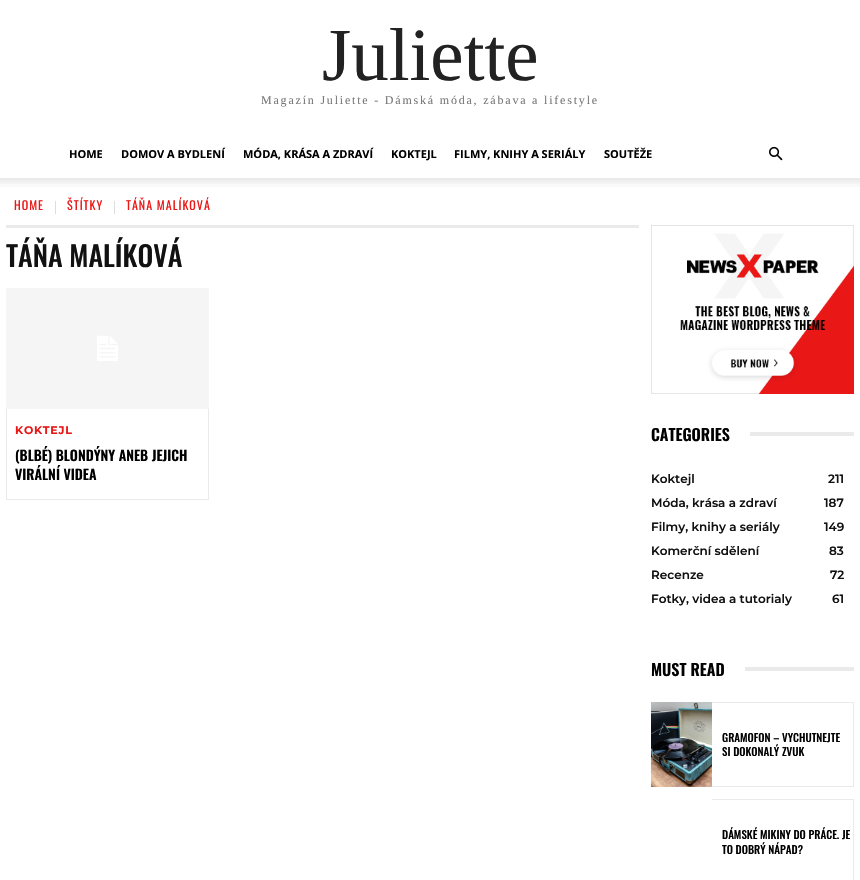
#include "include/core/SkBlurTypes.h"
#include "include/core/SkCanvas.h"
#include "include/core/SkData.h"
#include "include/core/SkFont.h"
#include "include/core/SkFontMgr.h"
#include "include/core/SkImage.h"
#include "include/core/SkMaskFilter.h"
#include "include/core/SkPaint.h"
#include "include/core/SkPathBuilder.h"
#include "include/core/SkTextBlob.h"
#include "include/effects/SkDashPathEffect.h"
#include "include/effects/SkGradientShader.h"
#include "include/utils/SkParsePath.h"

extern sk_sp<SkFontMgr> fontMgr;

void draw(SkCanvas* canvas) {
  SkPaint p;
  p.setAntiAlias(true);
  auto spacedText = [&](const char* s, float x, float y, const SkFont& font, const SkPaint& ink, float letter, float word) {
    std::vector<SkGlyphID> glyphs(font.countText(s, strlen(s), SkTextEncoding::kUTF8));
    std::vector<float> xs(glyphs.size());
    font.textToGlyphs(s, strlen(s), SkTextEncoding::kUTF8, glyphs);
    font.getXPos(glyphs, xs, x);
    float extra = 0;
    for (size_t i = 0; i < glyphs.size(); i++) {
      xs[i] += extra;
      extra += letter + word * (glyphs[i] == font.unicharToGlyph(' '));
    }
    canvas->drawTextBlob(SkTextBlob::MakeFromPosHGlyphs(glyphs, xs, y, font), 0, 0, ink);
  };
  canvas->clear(SK_ColorWHITE);
  canvas->drawImageRect(SkImages::DeferredFromEncodedData(SkData::MakeFromFileName("images/1.png")), SkRect::MakeLTRB(769, 146, 783, 161), SkSamplingOptions());
  canvas->drawImageRect(SkImages::DeferredFromEncodedData(SkData::MakeFromFileName("images/2.png")), SkRect::MakeLTRB(0, 178, 860, 187), SkSamplingOptions());
  p.setColor(SkColorSetRGB(221, 221, 221));
  canvas->drawRect(SkRect::MakeLTRB(55, 201, 56, 214), p);
  canvas->drawRect(SkRect::MakeLTRB(114, 201, 115, 214), p);
  p.setColor(SkColorSetRGB(234, 234, 234));
  canvas->drawRect(SkRect::MakeLTRB(6, 225, 639, 228), p);
  canvas->drawImageRect(SkImages::DeferredFromEncodedData(SkData::MakeFromFileName("images/3.png")), SkRect::MakeLTRB(6, 288, 209, 409), SkSamplingOptions());
  canvas->drawRect(SkRect::MakeLTRB(208, 409, 209, 500), p);
  canvas->drawRect(SkRect::MakeLTRB(6, 499, 209, 500), p);
  canvas->drawRect(SkRect::MakeLTRB(6, 409, 7, 500), p);
  canvas->drawImageRect(SkImages::DeferredFromEncodedData(SkData::MakeFromFileName("images/4.png")), SkRect::MakeLTRB(651, 225, 854, 394), SkSamplingOptions());
  canvas->drawRect(SkRect::MakeLTRB(750, 432, 854, 436), p);
  canvas->drawRect(SkRect::MakeLTRB(745, 667, 854, 671), p);
  canvas->drawImageRect(SkImages::DeferredFromEncodedData(SkData::MakeFromFileName("images/5.png")), SkRect::MakeLTRB(651, 702, 712, 787), SkSamplingOptions());
  canvas->drawRect(SkRect::MakeLTRB(712, 702, 854, 703), p);
  canvas->drawRect(SkRect::MakeLTRB(853, 702, 854, 787), p);
  canvas->drawRect(SkRect::MakeLTRB(712, 786, 854, 787), p);
  canvas->drawRect(SkRect::MakeLTRB(712, 799, 854, 800), p);
  canvas->drawRect(SkRect::MakeLTRB(853, 799, 854, 880), p);
  SkFont font1(fontMgr->matchFamilyStyle("Liberation Serif", SkFontStyle::Normal()), 75);
  font1.setSubpixel(true);
  p.setColor(SkColorSetRGB(34, 34, 34));
  canvas->drawString("Juliette", 322, 80, font1, p);
  SkFont font2(fontMgr->matchFamilyStyle("Liberation Serif", SkFontStyle::Normal()), 12);
  font2.setSubpixel(true);
  p.setColor(SkColorSetRGB(119, 119, 119));
  spacedText("Magazín Juliette - Dámská móda, zábava a lifestyle", 261, 104, font2, p, 1.8f, 0);
  SkFont font3(fontMgr->matchFamilyStyle("Open Sans", SkFontStyle::Bold()), 11);
  font3.setSubpixel(true);
  p.setColor(SK_ColorBLACK);
  canvas->drawString("HOME", 69, 158, font3, p);
  canvas->drawString("DOMOV A BYDLENÍ", 121, 158, font3, p);
  canvas->drawString("MÓDA, KRÁSA A ZDRAVÍ", 243, 158, font3, p);
  canvas->drawString("KOKTEJL", 391, 158, font3, p);
  canvas->drawString("FILMY, KNIHY A SERIÁLY", 454, 158, font3, p);
  canvas->drawString("SOUTĚŽE", 604, 158, font3, p);
  SkFont font4(fontMgr->matchFamilyStyle("Oswald", SkFontStyle::Normal()), 12);
  font4.setSubpixel(true);
  p.setColor(SkColorSetRGB(234, 23, 23));
  spacedText("HOME", 14, 210, font4, p, 1, 0);
  spacedText("ŠTÍTKY", 67, 210, font4, p, 1, 0);
  spacedText("TÁŇA MALÍKOVÁ", 126, 210, font4, p, 1, 0);
  SkFont font5(fontMgr->matchFamilyStyle("Oswald", SkFontStyle(500, SkFontStyle::kNormal_Width, SkFontStyle::kUpright_Slant)), 28);
  font5.setSubpixel(true);
  p.setColor(SkColorSetRGB(17, 17, 17));
  canvas->drawString("TÁŇA MALÍKOVÁ", 6, 267, font5, p);
  SkFont font6(fontMgr->matchFamilyStyle("Montserrat", SkFontStyle::Bold()), 11);
  font6.setSubpixel(true);
  p.setColor(SkColorSetRGB(234, 23, 23));
  spacedText("KOKTEJL", 15, 434, font6, p, 0.75f, 0);
  SkFont font7(fontMgr->matchFamilyStyle("Oswald", SkFontStyle(600, SkFontStyle::kNormal_Width, SkFontStyle::kUpright_Slant)), 14);
  font7.setSubpixel(true);
  p.setColor(SK_ColorBLACK);
  canvas->drawString("(BLBÉ) BLONDÝNY ANEB JEJICH", 15, 461, font7, p);
  canvas->drawString("VIRÁLNÍ VIDEA", 15, 480, font7, p);
  SkFont font8(fontMgr->matchFamilyStyle("Oswald", SkFontStyle(600, SkFontStyle::kNormal_Width, SkFontStyle::kUpright_Slant)), 16);
  font8.setSubpixel(true);
  canvas->drawString("CATEGORIES", 651, 441, font8, p);
  SkFont font9(fontMgr->matchFamilyStyle("Montserrat", SkFontStyle(600, SkFontStyle::kNormal_Width, SkFontStyle::kUpright_Slant)), 12);
  font9.setSubpixel(true);
  p.setColor(SkColorSetRGB(17, 17, 17));
  canvas->drawString("Koktejl", 651, 483, font9, p);
  canvas->drawString("211", 828, 483, font9, p);
  canvas->drawString("Móda, krása a zdraví", 651, 507, font9, p);
  canvas->drawString("187", 824, 507, font9, p);
  canvas->drawString("Filmy, knihy a seriály", 651, 531, font9, p);
  canvas->drawString("149", 824, 531, font9, p);
  canvas->drawString("Komerční sdělení", 651, 555, font9, p);
  canvas->drawString("83", 829, 555, font9, p);
  canvas->drawString("Recenze", 651, 579, font9, p);
  canvas->drawString("72", 830, 579, font9, p);
  canvas->drawString("Fotky, videa a tutorialy", 651, 603, font9, p);
  canvas->drawString("61", 832, 603, font9, p);
  p.setColor(SK_ColorBLACK);
  canvas->drawString("MUST READ", 651, 676, font8, p);
  SkFont font10(fontMgr->matchFamilyStyle("Oswald", SkFontStyle(500, SkFontStyle::kNormal_Width, SkFontStyle::kUpright_Slant)), 11);
  font10.setSubpixel(true);
  canvas->drawString("GRAMOFON – VYCHUTNEJTE", 722, 742, font10, p);
  canvas->drawString("SI DOKONALÝ ZVUK", 722, 756, font10, p);
  canvas->drawString("DÁMSKÉ MIKINY DO PRÁCE. JE", 722, 839, font10, p);
  canvas->drawString("TO DOBRÝ NÁPAD?", 722, 854, font10, p);
}
